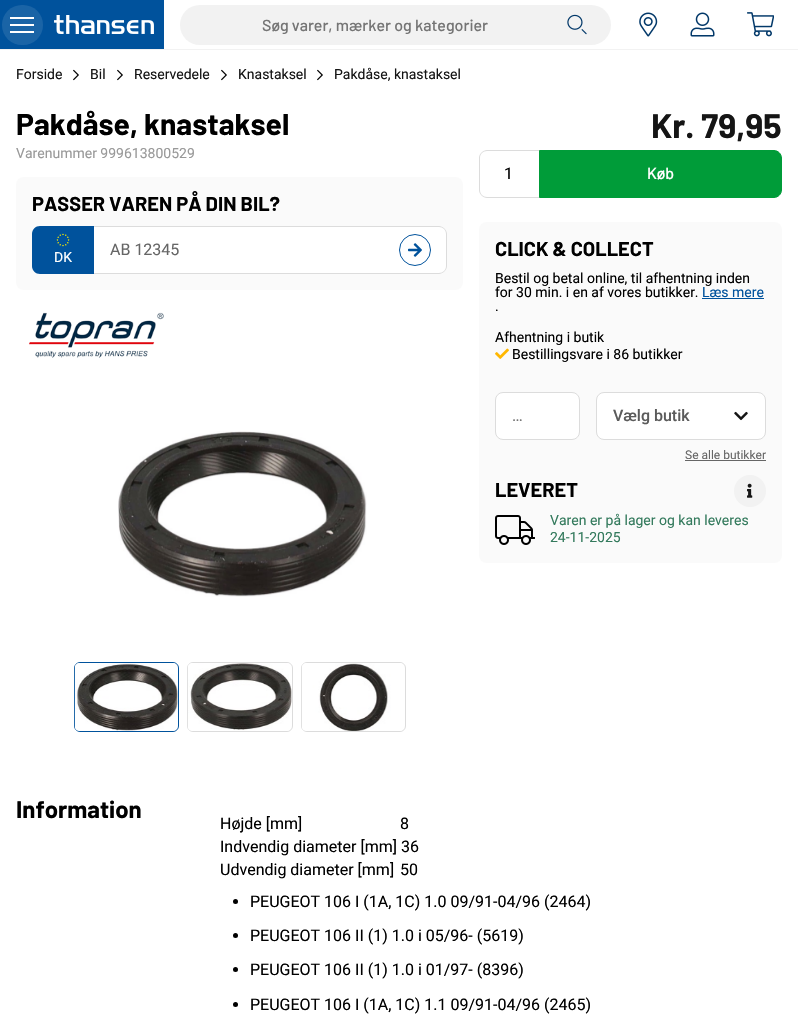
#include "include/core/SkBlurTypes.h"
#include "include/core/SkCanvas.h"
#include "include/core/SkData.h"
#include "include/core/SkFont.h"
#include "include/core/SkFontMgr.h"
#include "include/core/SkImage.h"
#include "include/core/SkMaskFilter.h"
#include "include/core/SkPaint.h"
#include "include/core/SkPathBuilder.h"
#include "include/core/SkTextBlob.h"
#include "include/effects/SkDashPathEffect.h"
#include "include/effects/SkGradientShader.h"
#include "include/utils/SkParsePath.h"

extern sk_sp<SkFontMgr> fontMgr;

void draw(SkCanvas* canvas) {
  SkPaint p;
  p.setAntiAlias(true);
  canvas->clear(SK_ColorWHITE);
  p.setColor(SkColorSetRGB(242, 242, 242));
  canvas->drawRect(SkRect::MakeLTRB(0, 49, 798, 50), p);
  p.setColor(SkColorSetRGB(0, 82, 156));
  canvas->drawRect(SkRect::MakeLTRB(0, 0, 164, 49), p);
  canvas->drawImageRect(SkImages::DeferredFromEncodedData(SkData::MakeFromFileName("images/1.png")), SkRect::MakeLTRB(10, 17, 34, 33), SkSamplingOptions());
  p.setColor(SkColorSetARGB(26, 255, 255, 255));
  canvas->drawRoundRect(SkRect::MakeLTRB(2, 5, 43, 45), 20, 20, p);
  canvas->drawImageRect(SkImages::DeferredFromEncodedData(SkData::MakeFromFileName("images/2.png")), SkRect::MakeLTRB(54, 15, 154, 34), SkSamplingOptions());
  p.setColor(SkColorSetRGB(242, 242, 242));
  canvas->drawRoundRect(SkRect::MakeLTRB(180, 5, 611, 45), 20, 20, p);
  canvas->drawImageRect(SkImages::DeferredFromEncodedData(SkData::MakeFromFileName("images/3.png")), SkRect::MakeLTRB(567, 14, 587, 35), SkSamplingOptions());
  canvas->drawImageRect(SkImages::DeferredFromEncodedData(SkData::MakeFromFileName("images/4.png")), SkRect::MakeLTRB(639, 12, 658, 37), SkSamplingOptions());
  canvas->drawImageRect(SkImages::DeferredFromEncodedData(SkData::MakeFromFileName("images/5.png")), SkRect::MakeLTRB(690, 12, 715, 37), SkSamplingOptions());
  canvas->drawImageRect(SkImages::DeferredFromEncodedData(SkData::MakeFromFileName("images/6.png")), SkRect::MakeLTRB(747, 12, 774, 37), SkSamplingOptions());
  canvas->drawImageRect(SkImages::DeferredFromEncodedData(SkData::MakeFromFileName("images/7.png")), SkRect::MakeLTRB(73, 69, 79, 81), SkSamplingOptions());
  canvas->drawImageRect(SkImages::DeferredFromEncodedData(SkData::MakeFromFileName("images/7.png")), SkRect::MakeLTRB(117, 69, 123, 81), SkSamplingOptions());
  canvas->drawImageRect(SkImages::DeferredFromEncodedData(SkData::MakeFromFileName("images/7.png")), SkRect::MakeLTRB(221, 69, 227, 81), SkSamplingOptions());
  canvas->drawImageRect(SkImages::DeferredFromEncodedData(SkData::MakeFromFileName("images/7.png")), SkRect::MakeLTRB(317, 69, 323, 81), SkSamplingOptions());
  p.setColor(SkColorSetRGB(250, 250, 250));
  canvas->drawRoundRect(SkRect::MakeLTRB(16, 177, 463, 290), 8, 8, p);
  p.setColor(SK_ColorWHITE);
  canvas->drawPath(SkPathBuilder().moveTo(94, 226).lineTo(439, 226).cubicTo(443.5f, 226, 447, 229.5f, 447, 234).lineTo(447, 266).cubicTo(447, 270.5f, 443.5f, 274, 439, 274).lineTo(94, 274).close().detach(), p);
  p.setColor(SkColorSetRGB(220, 220, 220));
  canvas->drawPath(SkPathBuilder(SkPathFillType::kEvenOdd).moveTo(94, 226).lineTo(439, 226).cubicTo(443, 226, 447, 230, 447, 234).lineTo(447, 266).cubicTo(447, 270, 443, 274, 439, 274).lineTo(94, 274).close().moveTo(94, 227).lineTo(439, 227).cubicTo(443, 227, 446, 230, 446, 234).lineTo(446, 266).cubicTo(446, 270, 443, 273, 439, 273).lineTo(94, 273).close().detach(), p);
  p.setStyle(SkPaint::kStroke_Style);
  p.setStrokeWidth(1);
  p.setColor(SkColorSetRGB(0, 82, 156));
  canvas->drawCircle(415, 250, 15.5f, p);
  canvas->drawImageRect(SkImages::DeferredFromEncodedData(SkData::MakeFromFileName("images/8.png")), SkRect::MakeLTRB(408, 243, 422, 257), SkSamplingOptions());
  p.setStyle(SkPaint::kFill_Style);
  canvas->drawPath(SkPathBuilder().moveTo(40, 226).lineTo(94, 226).lineTo(94, 274).lineTo(40, 274).cubicTo(35.5f, 274, 32, 270.5f, 32, 266).lineTo(32, 234).cubicTo(32, 229.5f, 35.5f, 226, 40, 226).close().detach(), p);
  canvas->drawImageRect(SkImages::DeferredFromEncodedData(SkData::MakeFromFileName("images/9.png")), SkRect::MakeLTRB(56, 233, 70, 247), SkSamplingOptions());
  canvas->drawImageRect(SkImages::DeferredFromEncodedData(SkData::MakeFromFileName("images/10.png")), SkRect::MakeLTRB(29, 312, 164, 358), SkSamplingOptions());
  canvas->drawImageRect(SkImages::DeferredFromEncodedData(SkData::MakeFromFileName("images/11.png")), SkRect::MakeLTRB(118, 431, 367, 597), SkSamplingOptions());
  p.setStyle(SkPaint::kStroke_Style);
  canvas->drawRoundRect(SkRect::MakeLTRB(74.5f, 662.5f, 178.5f, 731.5f), 5.5f, 5.5f, p);
  canvas->drawImageRect(SkImages::DeferredFromEncodedData(SkData::MakeFromFileName("images/12.png")), SkRect::MakeLTRB(74, 663, 178, 731), SkSamplingOptions());
  p.setColor(SkColorSetRGB(220, 220, 220));
  canvas->drawRoundRect(SkRect::MakeLTRB(187.5f, 662.5f, 292.5f, 731.5f), 5.5f, 5.5f, p);
  canvas->drawImageRect(SkImages::DeferredFromEncodedData(SkData::MakeFromFileName("images/13.png")), SkRect::MakeLTRB(187, 663, 292, 731), SkSamplingOptions());
  canvas->drawRoundRect(SkRect::MakeLTRB(301.5f, 662.5f, 405.5f, 731.5f), 5.5f, 5.5f, p);
  canvas->drawImageRect(SkImages::DeferredFromEncodedData(SkData::MakeFromFileName("images/14.png")), SkRect::MakeLTRB(301, 663, 404, 731), SkSamplingOptions());
  p.setStyle(SkPaint::kFill_Style);
  canvas->drawPath(SkPathBuilder(SkPathFillType::kEvenOdd).moveTo(487, 150).lineTo(539, 150).lineTo(539, 198).lineTo(487, 198).cubicTo(483, 198, 479, 194, 479, 190).lineTo(479, 158).cubicTo(479, 154, 483, 150, 487, 150).close().moveTo(487, 151).lineTo(539, 151).lineTo(539, 197).lineTo(487, 197).cubicTo(483, 197, 480, 194, 480, 190).lineTo(480, 158).cubicTo(480, 154, 483, 151, 487, 151).close().detach(), p);
  p.setColor(SkColorSetRGB(0, 156, 57));
  canvas->drawPath(SkPathBuilder().moveTo(539.5f, 150.5f).lineTo(774, 150.5f).cubicTo(778, 150.5f, 781.5f, 154, 781.5f, 158).lineTo(781.5f, 190).cubicTo(781.5f, 194, 778, 197.5f, 774, 197.5f).lineTo(539.5f, 197.5f).close().detach(), p);
  p.setStyle(SkPaint::kStroke_Style);
  canvas->drawPath(SkPathBuilder().moveTo(539.5f, 150.5f).lineTo(774, 150.5f).cubicTo(778, 150.5f, 781.5f, 154, 781.5f, 158).lineTo(781.5f, 190).cubicTo(781.5f, 194, 778, 197.5f, 774, 197.5f).lineTo(539.5f, 197.5f).close().detach(), p);
  p.setStyle(SkPaint::kFill_Style);
  p.setColor(SkColorSetRGB(250, 250, 250));
  canvas->drawRoundRect(SkRect::MakeLTRB(479, 222, 782, 563), 8, 8, p);
  p.setColor(SkColorSetRGB(0, 82, 156));
  canvas->drawRect(SkRect::MakeLTRB(702, 298, 764, 299), p);
  canvas->drawImageRect(SkImages::DeferredFromEncodedData(SkData::MakeFromFileName("images/15.png")), SkRect::MakeLTRB(495, 348, 509, 359), SkSamplingOptions());
  p.setColor(SK_ColorWHITE);
  canvas->drawRoundRect(SkRect::MakeLTRB(495.5f, 392.5f, 579.5f, 439.5f), 7.5f, 7.5f, p);
  p.setStyle(SkPaint::kStroke_Style);
  p.setColor(SkColorSetRGB(220, 220, 220));
  canvas->drawRoundRect(SkRect::MakeLTRB(495.5f, 392.5f, 579.5f, 439.5f), 7.5f, 7.5f, p);
  p.setStyle(SkPaint::kFill_Style);
  p.setColor(SK_ColorWHITE);
  canvas->drawRoundRect(SkRect::MakeLTRB(596.5f, 392.5f, 765.5f, 439.5f), 7.5f, 7.5f, p);
  p.setStyle(SkPaint::kStroke_Style);
  p.setColor(SkColorSetRGB(220, 220, 220));
  canvas->drawRoundRect(SkRect::MakeLTRB(596.5f, 392.5f, 765.5f, 439.5f), 7.5f, 7.5f, p);
  canvas->drawImageRect(SkImages::DeferredFromEncodedData(SkData::MakeFromFileName("images/16.png")), SkRect::MakeLTRB(734, 411, 748, 421), SkSamplingOptions());
  p.setStyle(SkPaint::kFill_Style);
  p.setColor(SkColorSetRGB(102, 102, 102));
  canvas->drawRect(SkRect::MakeLTRB(685, 460, 766, 461), p);
  p.setColor(SkColorSetRGB(242, 242, 242));
  canvas->drawCircle(750, 491, 16, p);
  canvas->drawImageRect(SkImages::DeferredFromEncodedData(SkData::MakeFromFileName("images/17.png")), SkRect::MakeLTRB(747, 483, 753, 498), SkSamplingOptions());
  canvas->drawImageRect(SkImages::DeferredFromEncodedData(SkData::MakeFromFileName("images/18.png")), SkRect::MakeLTRB(495, 515, 535, 545), SkSamplingOptions());
  p.setColor(SK_ColorBLACK);
  canvas->drawCircle(235.5f, 901.5f, 2.5f, p);
  canvas->drawCircle(235.5f, 935.5f, 2.5f, p);
  canvas->drawCircle(235.5f, 969.5f, 2.5f, p);
  canvas->drawCircle(235.5f, 1004.5f, 2.5f, p);
  canvas->save();
  canvas->clipRect(SkRect::MakeLTRB(206, 15, 545, 34));
  SkFont font1(fontMgr->matchFamilyStyle("Barlow", SkFontStyle(500, SkFontStyle::kNormal_Width, SkFontStyle::kUpright_Slant)), 16);
  font1.setSubpixel(true);
  p.setColor(SkColorSetRGB(117, 117, 117));
  canvas->drawString("Søg varer, mærker og kategorier", 262, 31, font1, p);
  canvas->restore();
  SkFont font2(fontMgr->matchFamilyStyle("Roboto", SkFontStyle::Normal()), 14);
  font2.setSubpixel(true);
  p.setColor(SkColorSetRGB(21, 21, 21));
  canvas->drawString("Forside", 16, 79, font2, p);
  canvas->drawString("Bil", 90, 79, font2, p);
  canvas->drawString("Reservedele", 134, 79, font2, p);
  canvas->drawString("Knastaksel", 238, 79, font2, p);
  canvas->drawString("Pakdåse, knastaksel", 334, 79, font2, p);
  SkFont font3(fontMgr->matchFamilyStyle("Barlow", SkFontStyle::Bold()), 30);
  font3.setSubpixel(true);
  p.setColor(SK_ColorBLACK);
  canvas->drawString("Pakdåse, knastaksel", 16, 135, font3, p);
  p.setColor(SkColorSetRGB(153, 153, 153));
  canvas->drawString("Varenummer 999613800529", 16, 158, font2, p);
  SkFont font4(fontMgr->matchFamilyStyle("Barlow", SkFontStyle::Bold()), 20);
  font4.setSubpixel(true);
  p.setColor(SK_ColorBLACK);
  canvas->drawString("PASSER VAREN PÅ DIN BIL?", 32, 211, font4, p);
  SkFont font5(fontMgr->matchFamilyStyle("Roboto", SkFontStyle::Normal()), 16);
  font5.setSubpixel(true);
  p.setColor(SkColorSetRGB(102, 102, 102));
  canvas->drawString("AB 12345", 110, 255, font5, p);
  p.setColor(SK_ColorWHITE);
  canvas->drawString("DK", 54, 262, font2, p);
  SkFont font6(fontMgr->matchFamilyStyle("Barlow", SkFontStyle::Bold()), 34);
  font6.setSubpixel(true);
  p.setColor(SkColorSetRGB(21, 21, 21));
  canvas->drawString("Kr. 79,95", 651, 138, font6, p);
  p.setColor(SK_ColorBLACK);
  canvas->drawString("1", 504, 179, font5, p);
  p.setColor(SK_ColorWHITE);
  canvas->drawString("Køb", 647, 179, font1, p);
  p.setColor(SK_ColorBLACK);
  canvas->drawString("CLICK & COLLECT", 495, 256, font4, p);
  canvas->drawString("Bestil og betal online, til afhentning inden", 495, 283, font2, p);
  canvas->drawString("for 30 min. i en af vores butikker.", 495, 297, font2, p);
  p.setColor(SkColorSetRGB(0, 82, 156));
  canvas->drawString("Læs mere", 702, 297, font2, p);
  p.setColor(SK_ColorBLACK);
  canvas->drawString(".", 495, 311, font2, p);
  canvas->drawString("Afhentning i butik", 495, 342, font2, p);
  canvas->drawString("Bestillingsvare i 86 butikker", 512, 359, font2, p);
  p.setColor(SkColorSetRGB(117, 117, 117));
  canvas->drawString("…", 512, 421, font5, p);
  SkFont font7(fontMgr->matchFamilyStyle("Roboto", SkFontStyle(500, SkFontStyle::kNormal_Width, SkFontStyle::kUpright_Slant)), 16);
  font7.setSubpixel(true);
  p.setColor(SkColorSetRGB(91, 91, 91));
  canvas->drawString("Vælg butik", 613, 421, font7, p);
  SkFont font8(fontMgr->matchFamilyStyle("Roboto", SkFontStyle::Normal()), 12);
  font8.setSubpixel(true);
  p.setColor(SkColorSetRGB(102, 102, 102));
  canvas->drawString("Se alle butikker", 685, 459, font8, p);
  p.setColor(SK_ColorBLACK);
  canvas->drawString("LEVERET", 495, 497, font4, p);
  p.setColor(SkColorSetRGB(52, 122, 93));
  canvas->drawString("Varen er på lager og kan leveres", 550, 525, font2, p);
  canvas->drawString("24-11-2025", 550, 542, font2, p);
  SkFont font9(fontMgr->matchFamilyStyle("Barlow", SkFontStyle::Bold()), 24);
  font9.setSubpixel(true);
  p.setColor(SK_ColorBLACK);
  canvas->drawString("Information", 16, 818, font9, p);
  canvas->drawString("Højde [mm]", 220, 829, font5, p);
  canvas->drawString("8", 400, 829, font5, p);
  canvas->drawString("Indvendig diameter [mm] 36", 220, 852, font5, p);
  canvas->drawString("Udvendig diameter [mm]", 220, 875, font5, p);
  canvas->drawString("50", 400, 875, font5, p);
  canvas->drawString("PEUGEOT 106 I (1A, 1C) 1.0 09/91-04/96 (2464)", 250, 907, font5, p);
  canvas->drawString("PEUGEOT 106 II (1) 1.0 i 05/96- (5619)", 250, 941, font5, p);
  canvas->drawString("PEUGEOT 106 II (1) 1.0 i 01/97- (8396)", 250, 975, font5, p);
  canvas->drawString("PEUGEOT 106 I (1A, 1C) 1.1 09/91-04/96 (2465)", 250, 1010, font5, p);
}
